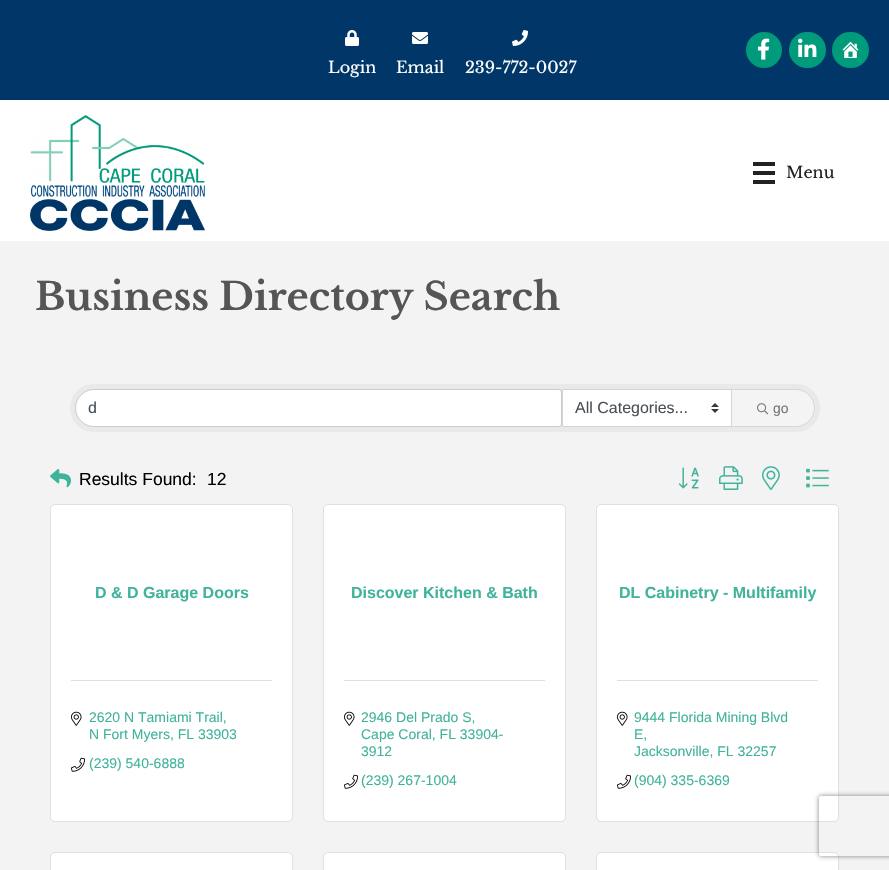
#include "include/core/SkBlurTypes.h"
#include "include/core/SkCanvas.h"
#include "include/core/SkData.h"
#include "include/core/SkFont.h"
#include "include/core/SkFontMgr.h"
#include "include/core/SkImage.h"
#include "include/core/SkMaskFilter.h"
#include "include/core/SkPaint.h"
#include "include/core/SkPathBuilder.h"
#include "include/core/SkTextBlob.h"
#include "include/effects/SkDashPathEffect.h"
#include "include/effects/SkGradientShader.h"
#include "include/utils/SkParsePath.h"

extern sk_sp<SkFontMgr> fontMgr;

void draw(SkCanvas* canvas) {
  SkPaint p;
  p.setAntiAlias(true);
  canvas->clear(SkColorSetRGB(0, 55, 104));
  canvas->drawImageRect(SkImages::DeferredFromEncodedData(SkData::MakeFromFileName("images/1.png")), SkRect::MakeLTRB(345, 30, 359, 46), SkSamplingOptions());
  canvas->drawImageRect(SkImages::DeferredFromEncodedData(SkData::MakeFromFileName("images/2.png")), SkRect::MakeLTRB(412, 32, 428, 44), SkSamplingOptions());
  canvas->drawImageRect(SkImages::DeferredFromEncodedData(SkData::MakeFromFileName("images/3.png")), SkRect::MakeLTRB(512, 30, 528, 46), SkSamplingOptions());
  p.setColor(SkColorSetRGB(0, 155, 123));
  canvas->drawCircle(764, 50, 18, p);
  canvas->drawImageRect(SkImages::DeferredFromEncodedData(SkData::MakeFromFileName("images/4.png")), SkRect::MakeLTRB(757, 38, 770, 60), SkSamplingOptions());
  canvas->drawRoundRect(SkRect::MakeLTRB(789, 32, 826, 68), 18, 18, p);
  canvas->drawImageRect(SkImages::DeferredFromEncodedData(SkData::MakeFromFileName("images/5.png")), SkRect::MakeLTRB(798, 38, 817, 57), SkSamplingOptions());
  canvas->drawRoundRect(SkRect::MakeLTRB(832, 32, 869, 68), 18, 18, p);
  canvas->drawImageRect(SkImages::DeferredFromEncodedData(SkData::MakeFromFileName("images/6.png")), SkRect::MakeLTRB(842, 41, 859, 58), SkSamplingOptions());
  p.setColor(SK_ColorWHITE);
  canvas->drawRect(SkRect::MakeLTRB(0, 100, 889, 241), p);
  canvas->drawImageRect(SkImages::DeferredFromEncodedData(SkData::MakeFromFileName("images/7.png")), SkRect::MakeLTRB(30, 115, 205, 231), SkSamplingOptions());
  p.setColor(SkColorSetRGB(34, 34, 34));
  canvas->drawRect(SkRect::MakeLTRB(753, 162, 775, 166), p);
  canvas->drawRect(SkRect::MakeLTRB(753, 171, 775, 175), p);
  canvas->drawRect(SkRect::MakeLTRB(753, 180, 775, 184), p);
  p.setColor(SkColorSetRGB(243, 243, 243));
  canvas->drawRect(SkRect::MakeLTRB(0, 241, 889, 870), p);
  p.setColor(SkColorSetRGB(233, 233, 233));
  canvas->drawRoundRect(SkRect::MakeLTRB(70, 384, 820, 432), 24, 24, p);
  p.setColor(SK_ColorWHITE);
  canvas->drawPath(SkPathBuilder().moveTo(94, 390).lineTo(559, 390).cubicTo(560, 390, 561, 391, 561, 392).lineTo(561, 424).cubicTo(561, 425, 560, 426, 559, 426).lineTo(94, 426).cubicTo(84, 426, 76, 418, 76, 408).cubicTo(76, 398, 84, 390, 94, 390).close().detach(), p);
  p.setStyle(SkPaint::kStroke_Style);
  p.setStrokeWidth(1);
  p.setColor(SkColorSetARGB(31, 0, 0, 0));
  canvas->drawPath(SkPathBuilder().moveTo(94, 389.5f).lineTo(559, 389.5f).cubicTo(560.5f, 389.5f, 561.5f, 390.5f, 561.5f, 392).lineTo(561.5f, 424).cubicTo(561.5f, 425.5f, 560.5f, 426.5f, 559, 426.5f).lineTo(94, 426.5f).cubicTo(84, 426.5f, 75.5f, 418, 75.5f, 408).cubicTo(75.5f, 398, 84, 389.5f, 94, 389.5f).close().detach(), p);
  p.setStyle(SkPaint::kFill_Style);
  p.setColor(SK_ColorWHITE);
  canvas->drawRect(SkRect::MakeLTRB(563, 390, 731, 426), p);
  canvas->drawImageRect(SkImages::DeferredFromEncodedData(SkData::MakeFromFileName("images/8.png")), SkRect::MakeLTRB(711, 403, 719, 413), SkSamplingOptions());
  p.setStyle(SkPaint::kStroke_Style);
  p.setColor(SkColorSetRGB(206, 212, 218));
  canvas->drawRect(SkRect::MakeLTRB(562.5f, 389.5f, 731.5f, 426.5f), p);
  p.setStyle(SkPaint::kFill_Style);
  p.setColor(SkColorSetRGB(244, 244, 244));
  canvas->drawPath(SkPathBuilder().moveTo(731, 389).lineTo(796, 389).cubicTo(806.5f, 389, 815, 397.5f, 815, 408).cubicTo(815, 418.5f, 806.5f, 427, 796, 427).lineTo(731, 427).close().detach(), p);
  p.setStyle(SkPaint::kStroke_Style);
  p.setColor(SkColorSetARGB(31, 0, 0, 0));
  canvas->drawPath(SkPathBuilder().moveTo(731.5f, 389.5f).lineTo(796, 389.5f).cubicTo(806, 389.5f, 814.5f, 398, 814.5f, 408).cubicTo(814.5f, 418, 806, 426.5f, 796, 426.5f).lineTo(731.5f, 426.5f).close().detach(), p);
  canvas->drawImageRect(SkImages::DeferredFromEncodedData(SkData::MakeFromFileName("images/9.png")), SkRect::MakeLTRB(757, 403, 769, 415), SkSamplingOptions());
  canvas->drawImageRect(SkImages::DeferredFromEncodedData(SkData::MakeFromFileName("images/10.png")), SkRect::MakeLTRB(50, 469, 71, 488), SkSamplingOptions());
  canvas->drawImageRect(SkImages::DeferredFromEncodedData(SkData::MakeFromFileName("images/11.png")), SkRect::MakeLTRB(678, 467, 699, 489), SkSamplingOptions());
  canvas->drawImageRect(SkImages::DeferredFromEncodedData(SkData::MakeFromFileName("images/12.png")), SkRect::MakeLTRB(719, 466, 743, 490), SkSamplingOptions());
  canvas->drawImageRect(SkImages::DeferredFromEncodedData(SkData::MakeFromFileName("images/13.png")), SkRect::MakeLTRB(762, 466, 780, 490), SkSamplingOptions());
  canvas->drawImageRect(SkImages::DeferredFromEncodedData(SkData::MakeFromFileName("images/14.png")), SkRect::MakeLTRB(806, 468, 829, 488), SkSamplingOptions());
  p.setStyle(SkPaint::kFill_Style);
  p.setColor(SK_ColorWHITE);
  canvas->drawRoundRect(SkRect::MakeLTRB(50, 504, 293, 822), 5, 5, p);
  p.setStyle(SkPaint::kStroke_Style);
  p.setColor(SkColorSetARGB(31, 0, 0, 0));
  canvas->drawRoundRect(SkRect::MakeLTRB(50.5f, 504.5f, 292.5f, 821.5f), 4.5f, 4.5f, p);
  p.setStyle(SkPaint::kFill_Style);
  p.setColor(SkColorSetRGB(223, 223, 223));
  canvas->drawRect(SkRect::MakeLTRB(71, 680, 272, 681), p);
  canvas->drawImageRect(SkImages::DeferredFromEncodedData(SkData::MakeFromFileName("images/15.png")), SkRect::MakeLTRB(71, 711, 82, 726), SkSamplingOptions());
  canvas->drawImageRect(SkImages::DeferredFromEncodedData(SkData::MakeFromFileName("images/16.png")), SkRect::MakeLTRB(71, 757, 85, 772), SkSamplingOptions());
  p.setColor(SK_ColorWHITE);
  canvas->drawRoundRect(SkRect::MakeLTRB(323, 504, 566, 822), 5, 5, p);
  p.setStyle(SkPaint::kStroke_Style);
  p.setColor(SkColorSetARGB(31, 0, 0, 0));
  canvas->drawRoundRect(SkRect::MakeLTRB(323.5f, 504.5f, 565.5f, 821.5f), 4.5f, 4.5f, p);
  p.setStyle(SkPaint::kFill_Style);
  p.setColor(SkColorSetRGB(223, 223, 223));
  canvas->drawRect(SkRect::MakeLTRB(344, 680, 545, 681), p);
  canvas->drawImageRect(SkImages::DeferredFromEncodedData(SkData::MakeFromFileName("images/15.png")), SkRect::MakeLTRB(344, 711, 355, 726), SkSamplingOptions());
  canvas->drawImageRect(SkImages::DeferredFromEncodedData(SkData::MakeFromFileName("images/16.png")), SkRect::MakeLTRB(344, 774, 358, 789), SkSamplingOptions());
  p.setColor(SK_ColorWHITE);
  canvas->drawRoundRect(SkRect::MakeLTRB(596, 504, 839, 822), 5, 5, p);
  p.setStyle(SkPaint::kStroke_Style);
  p.setColor(SkColorSetARGB(31, 0, 0, 0));
  canvas->drawRoundRect(SkRect::MakeLTRB(596.5f, 504.5f, 838.5f, 821.5f), 4.5f, 4.5f, p);
  p.setStyle(SkPaint::kFill_Style);
  p.setColor(SkColorSetRGB(223, 223, 223));
  canvas->drawRect(SkRect::MakeLTRB(617, 680, 818, 681), p);
  canvas->drawImageRect(SkImages::DeferredFromEncodedData(SkData::MakeFromFileName("images/15.png")), SkRect::MakeLTRB(617, 711, 628, 726), SkSamplingOptions());
  canvas->drawImageRect(SkImages::DeferredFromEncodedData(SkData::MakeFromFileName("images/16.png")), SkRect::MakeLTRB(617, 774, 631, 789), SkSamplingOptions());
  p.setColor(SK_ColorWHITE);
  canvas->drawRoundRect(SkRect::MakeLTRB(50, 852, 293, 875), 5, 5, p);
  p.setStyle(SkPaint::kStroke_Style);
  p.setColor(SkColorSetARGB(31, 0, 0, 0));
  canvas->drawRoundRect(SkRect::MakeLTRB(50.5f, 852.5f, 292.5f, 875.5f), 4.5f, 4.5f, p);
  p.setStyle(SkPaint::kFill_Style);
  p.setColor(SK_ColorWHITE);
  canvas->drawRoundRect(SkRect::MakeLTRB(323, 852, 566, 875), 5, 5, p);
  p.setStyle(SkPaint::kStroke_Style);
  p.setColor(SkColorSetARGB(31, 0, 0, 0));
  canvas->drawRoundRect(SkRect::MakeLTRB(323.5f, 852.5f, 565.5f, 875.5f), 4.5f, 4.5f, p);
  p.setStyle(SkPaint::kFill_Style);
  p.setColor(SK_ColorWHITE);
  canvas->drawRoundRect(SkRect::MakeLTRB(596, 852, 839, 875), 5, 5, p);
  p.setStyle(SkPaint::kStroke_Style);
  p.setColor(SkColorSetARGB(31, 0, 0, 0));
  canvas->drawRoundRect(SkRect::MakeLTRB(596.5f, 852.5f, 838.5f, 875.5f), 4.5f, 4.5f, p);
  canvas->save();
  canvas->clipPath(SkPathBuilder(SkPathFillType::kEvenOdd).moveTo(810, 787).lineTo(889, 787).lineTo(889, 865).lineTo(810, 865).close().moveTo(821, 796).lineTo(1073, 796).cubicTo(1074, 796, 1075, 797, 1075, 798).lineTo(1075, 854).cubicTo(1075, 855, 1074, 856, 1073, 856).lineTo(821, 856).cubicTo(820, 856, 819, 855, 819, 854).lineTo(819, 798).cubicTo(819, 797, 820, 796, 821, 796).close().detach(), true);
  p.setStyle(SkPaint::kFill_Style);
  p.setColor(SkColorSetRGB(128, 128, 128));
  p.setMaskFilter(SkMaskFilter::MakeBlur(kNormal_SkBlurStyle, 2.5f));
  canvas->drawRoundRect(SkRect::MakeLTRB(819, 796, 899, 856), 2, 2, p);
  p.setMaskFilter(nullptr);
  canvas->restore();
  SkFont font1(fontMgr->matchFamilyStyle("Libre Baskerville", SkFontStyle::Normal()), 16);
  font1.setSubpixel(true);
  p.setColor(SK_ColorWHITE);
  canvas->drawString("Login", 328, 73, font1, p);
  canvas->drawString("Email", 396, 73, font1, p);
  canvas->drawString("239-772-0027", 465, 73, font1, p);
  p.setColor(SkColorSetRGB(34, 34, 34));
  canvas->drawString("Menu", 786, 178, font1, p);
  SkFont font2(fontMgr->matchFamilyStyle("Libre Baskerville", SkFontStyle::Bold()), 38);
  font2.setSubpixel(true);
  p.setColor(SkColorSetRGB(85, 85, 85));
  canvas->drawString("Business Directory Search", 35, 310, font2, p);
  SkFont font3(fontMgr->matchFamilyStyle("Liberation Sans", SkFontStyle::Normal()), 16);
  font3.setSubpixel(true);
  p.setColor(SkColorSetRGB(73, 80, 87));
  canvas->drawString("d", 88, 413, font3, p);
  canvas->drawString("All Categories...", 575, 413, font3, p);
  SkFont font4(fontMgr->matchFamilyStyle("Liberation Sans", SkFontStyle::Normal()), 14);
  font4.setSubpixel(true);
  p.setColor(SkColorSetRGB(119, 119, 119));
  canvas->drawString("go", 773, 413, font4, p);
  SkFont font5(fontMgr->matchFamilyStyle("Liberation Sans", SkFontStyle::Normal()), 17.5f);
  font5.setSubpixel(true);
  p.setColor(SK_ColorBLACK);
  canvas->drawString("Results Found:", 79, 485, font5, p);
  canvas->drawString("12", 207, 485, font5, p);
  SkFont font6(fontMgr->matchFamilyStyle("Liberation Sans", SkFontStyle::Bold()), 16);
  font6.setSubpixel(true);
  p.setColor(SkColorSetRGB(64, 179, 155));
  canvas->drawString("D & D Garage Doors", 95, 598, font6, p);
  canvas->drawString("2620 N Tamiami Trail,", 89, 722, font4, p);
  canvas->drawString("N Fort Myers, FL 33903", 89, 739, font4, p);
  canvas->drawString("(239) 540-6888", 89, 768, font4, p);
  canvas->drawString("Discover Kitchen & Bath", 351, 598, font6, p);
  canvas->drawString("2946 Del Prado S,", 361, 722, font4, p);
  canvas->drawString("Cape Coral, FL 33904-", 361, 739, font4, p);
  canvas->drawString("3912", 361, 756, font4, p);
  canvas->drawString("(239) 267-1004", 361, 785, font4, p);
  canvas->drawString("DL Cabinetry - Multifamily", 619, 598, font6, p);
  canvas->drawString("9444 Florida Mining Blvd", 634, 722, font4, p);
  canvas->drawString("E,", 634, 739, font4, p);
  canvas->drawString("Jacksonville, FL 32257", 634, 756, font4, p);
  canvas->drawString("(904) 335-6369", 634, 785, font4, p);
}
